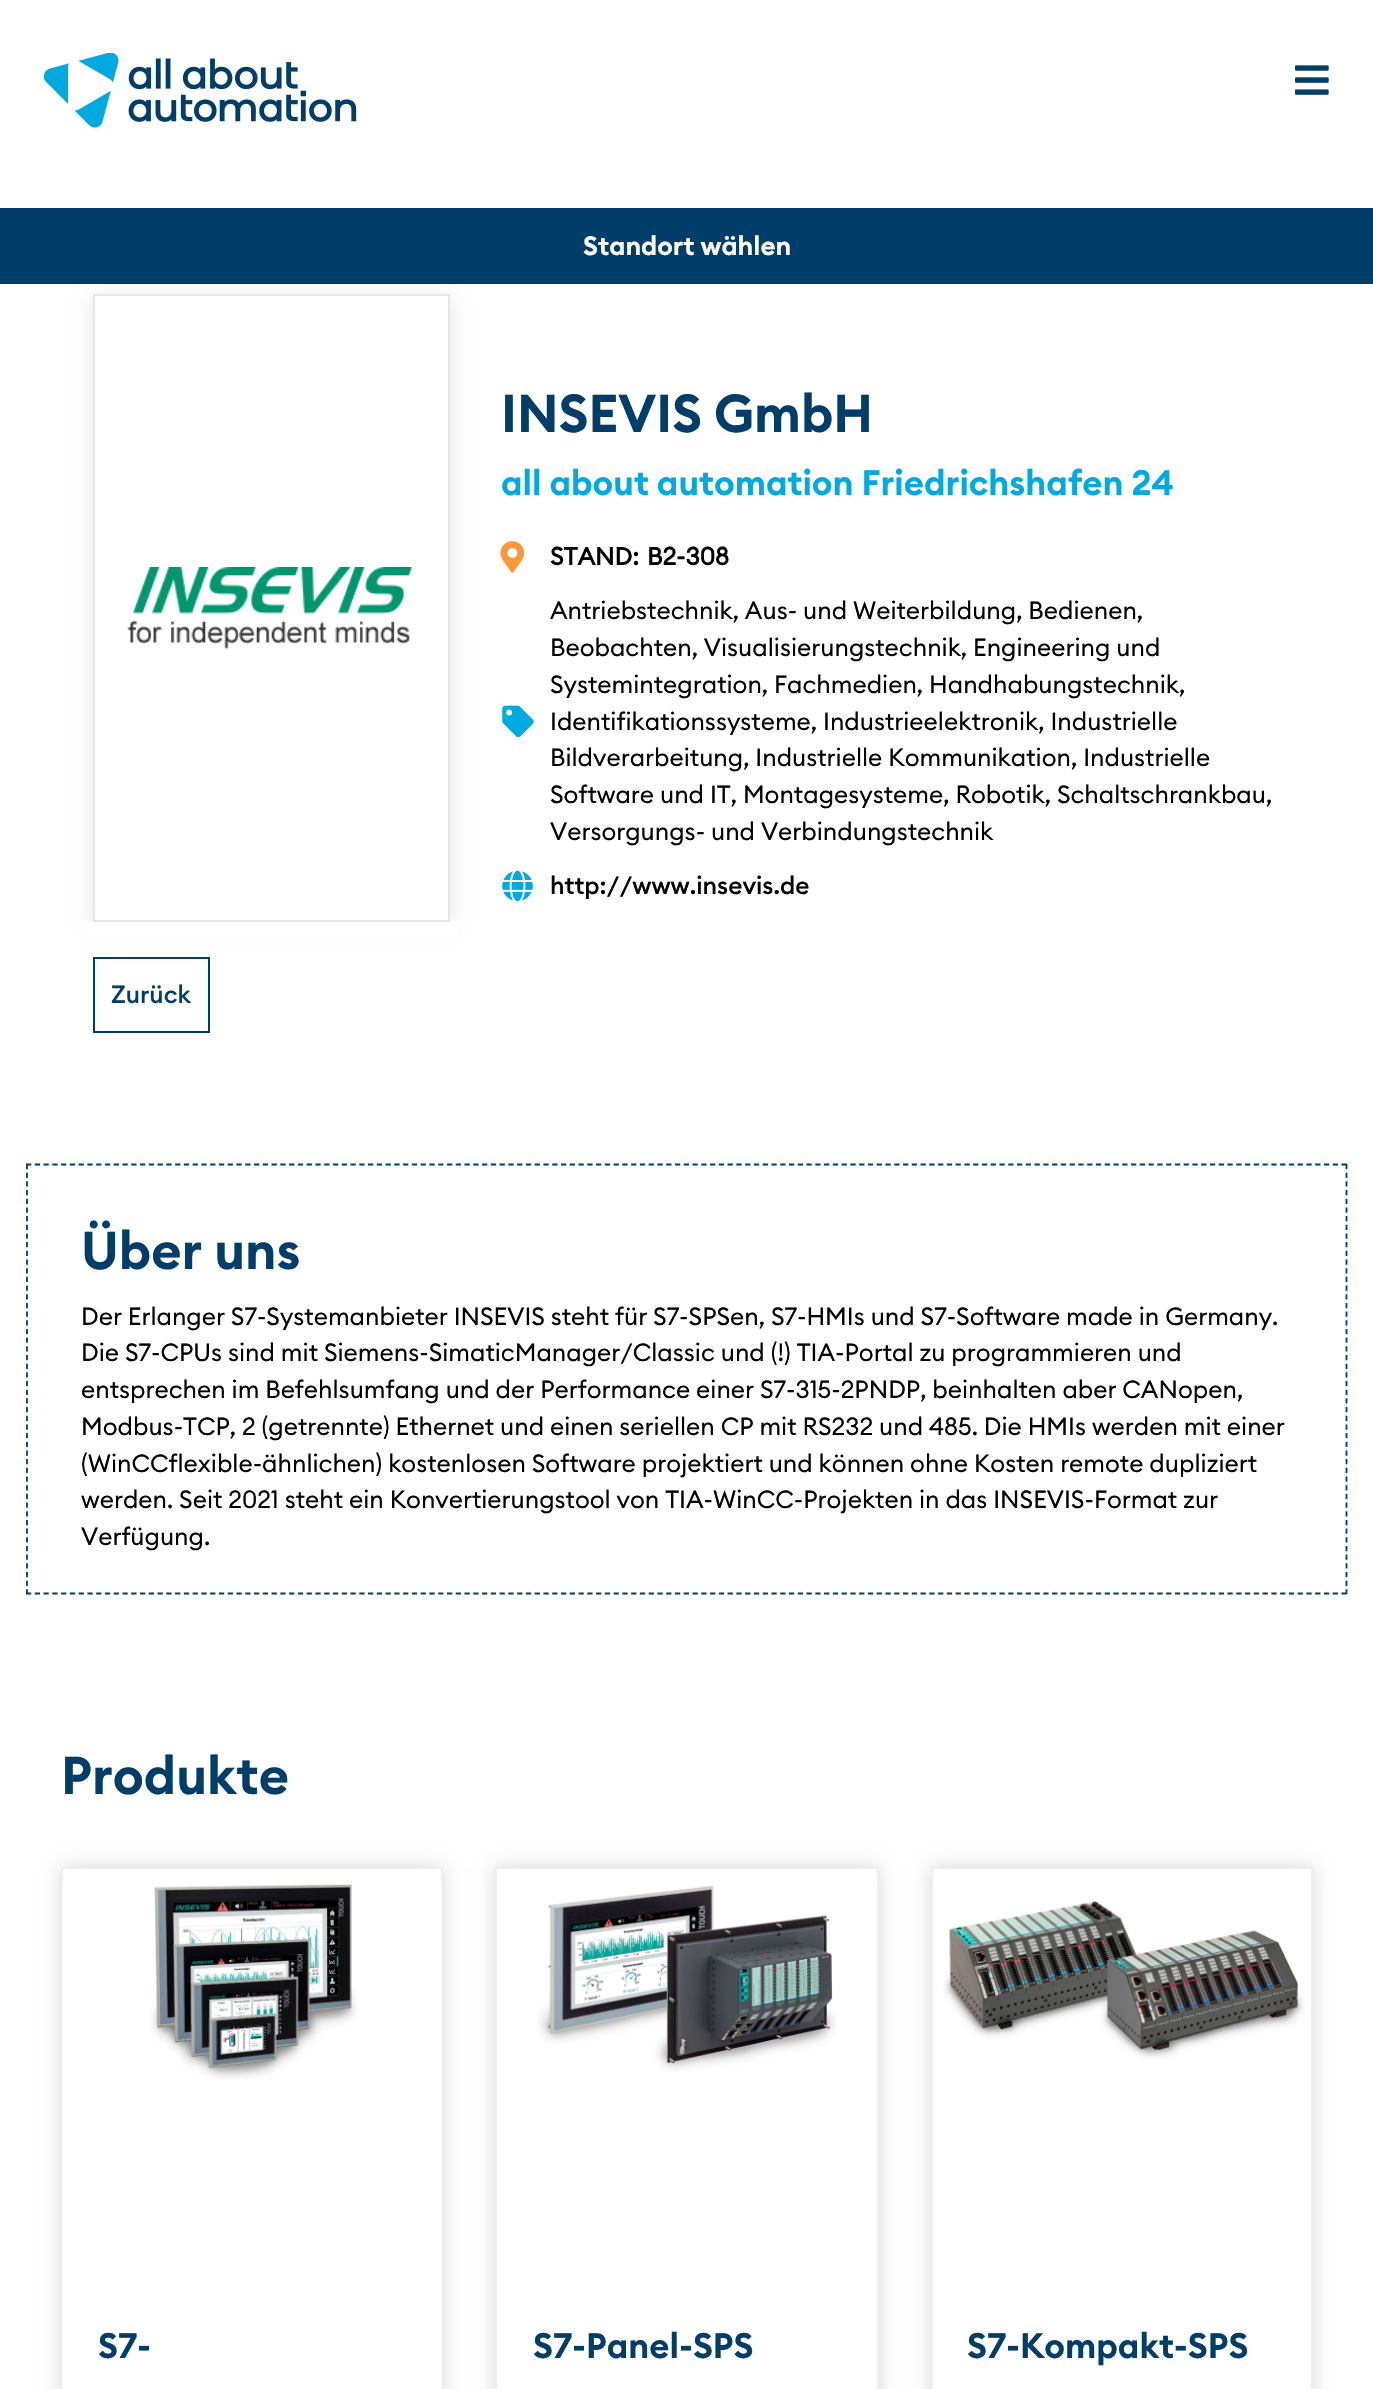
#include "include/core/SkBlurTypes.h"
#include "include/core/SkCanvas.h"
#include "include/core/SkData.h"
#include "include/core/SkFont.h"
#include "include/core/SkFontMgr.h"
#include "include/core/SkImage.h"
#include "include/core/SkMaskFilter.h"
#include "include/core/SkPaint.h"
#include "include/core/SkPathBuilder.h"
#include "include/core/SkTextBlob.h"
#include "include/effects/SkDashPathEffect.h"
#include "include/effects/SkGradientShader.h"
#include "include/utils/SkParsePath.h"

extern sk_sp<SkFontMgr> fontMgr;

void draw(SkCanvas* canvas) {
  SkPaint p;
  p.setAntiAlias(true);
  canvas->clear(SK_ColorWHITE);
  canvas->drawImageRect(SkImages::DeferredFromEncodedData(SkData::MakeFromFileName("images/1.png")), SkRect::MakeLTRB(44, 53, 357, 128), SkSamplingOptions());
  canvas->drawImageRect(SkImages::DeferredFromEncodedData(SkData::MakeFromFileName("images/2.png")), SkRect::MakeLTRB(1295, 65, 1329, 95), SkSamplingOptions());
  p.setColor(SkColorSetRGB(0, 62, 105));
  canvas->drawRect(SkRect::MakeLTRB(0, 208, 1373, 284), p);
  p.setColor(SkColorSetARGB(26, 0, 0, 0));
  p.setMaskFilter(SkMaskFilter::MakeBlur(kNormal_SkBlurStyle, 9));
  canvas->drawRect(SkRect::MakeLTRB(93, 298, 450, 926), p);
  p.setMaskFilter(nullptr);
  p.setColor(SK_ColorWHITE);
  canvas->drawRect(SkRect::MakeLTRB(94, 295, 449, 921), p);
  p.setStyle(SkPaint::kStroke_Style);
  p.setStrokeWidth(2);
  p.setColor(SkColorSetRGB(228, 230, 235));
  canvas->drawRect(SkRect::MakeLTRB(94, 295, 449, 921), p);
  canvas->drawImageRect(SkImages::DeferredFromEncodedData(SkData::MakeFromFileName("images/3.png")), SkRect::MakeLTRB(127, 567, 412, 650), SkSamplingOptions());
  canvas->drawImageRect(SkImages::DeferredFromEncodedData(SkData::MakeFromFileName("images/4.png")), SkRect::MakeLTRB(500, 541, 525, 573), SkSamplingOptions());
  canvas->drawImageRect(SkImages::DeferredFromEncodedData(SkData::MakeFromFileName("images/5.png")), SkRect::MakeLTRB(502, 705, 534, 738), SkSamplingOptions());
  canvas->drawImageRect(SkImages::DeferredFromEncodedData(SkData::MakeFromFileName("images/6.png")), SkRect::MakeLTRB(502, 870, 533, 902), SkSamplingOptions());
  p.setStyle(SkPaint::kFill_Style);
  p.setColor(SK_ColorWHITE);
  canvas->drawRect(SkRect::MakeLTRB(84, 922, 459, 938), p);
  p.setStyle(SkPaint::kStroke_Style);
  p.setColor(SkColorSetRGB(0, 62, 105));
  canvas->drawRect(SkRect::MakeLTRB(94, 958, 209, 1032), p);
  p.setStrokeWidth(1.8f);
  p.setPathEffect(SkDashPathEffect::Make({{5.25f, 3.52f}}, 0));
  canvas->drawPath(SkPathBuilder().moveTo(26, 1164.5f).lineTo(1347.5f, 1164.5f).detach(), p);
  p.setPathEffect(nullptr);
  p.setPathEffect(SkDashPathEffect::Make({{5.25f, 3.43f}}, 0));
  canvas->drawPath(SkPathBuilder().moveTo(1346.5f, 1164).lineTo(1346.5f, 1594).detach(), p);
  p.setPathEffect(nullptr);
  p.setPathEffect(SkDashPathEffect::Make({{5.25f, 3.52f}}, 0));
  canvas->drawPath(SkPathBuilder().moveTo(26, 1593.5f).lineTo(1347.5f, 1593.5f).detach(), p);
  p.setPathEffect(nullptr);
  p.setPathEffect(SkDashPathEffect::Make({{5.25f, 3.43f}}, 0));
  canvas->drawPath(SkPathBuilder().moveTo(27, 1164).lineTo(27, 1594).detach(), p);
  p.setPathEffect(nullptr);
  p.setStyle(SkPaint::kFill_Style);
  p.setColor(SkColorSetARGB(38, 0, 0, 0));
  p.setMaskFilter(SkMaskFilter::MakeBlur(kNormal_SkBlurStyle, 9));
  canvas->drawRect(SkRect::MakeLTRB(61, 1867, 443, 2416), p);
  p.setMaskFilter(nullptr);
  p.setColor(SK_ColorWHITE);
  canvas->drawRect(SkRect::MakeLTRB(62, 1868, 442, 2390), p);
  p.setStyle(SkPaint::kStroke_Style);
  p.setStrokeWidth(2);
  p.setColor(SkColorSetRGB(239, 239, 239));
  canvas->drawRect(SkRect::MakeLTRB(62, 1868, 442, 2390), p);
  canvas->drawImageRect(SkImages::DeferredFromEncodedData(SkData::MakeFromFileName("images/7.png")), SkRect::MakeLTRB(150, 1884, 357, 2080), SkSamplingOptions());
  p.setStyle(SkPaint::kFill_Style);
  p.setColor(SkColorSetARGB(38, 0, 0, 0));
  p.setMaskFilter(SkMaskFilter::MakeBlur(kNormal_SkBlurStyle, 9));
  canvas->drawRect(SkRect::MakeLTRB(495, 1867, 879, 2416), p);
  p.setMaskFilter(nullptr);
  p.setColor(SK_ColorWHITE);
  canvas->drawRect(SkRect::MakeLTRB(496, 1868, 878, 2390), p);
  p.setStyle(SkPaint::kStroke_Style);
  p.setColor(SkColorSetRGB(239, 239, 239));
  canvas->drawRect(SkRect::MakeLTRB(496, 1868, 878, 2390), p);
  canvas->drawImageRect(SkImages::DeferredFromEncodedData(SkData::MakeFromFileName("images/8.png")), SkRect::MakeLTRB(537, 1885, 837, 2072), SkSamplingOptions());
  p.setStyle(SkPaint::kFill_Style);
  p.setColor(SkColorSetARGB(38, 0, 0, 0));
  p.setMaskFilter(SkMaskFilter::MakeBlur(kNormal_SkBlurStyle, 9));
  canvas->drawRect(SkRect::MakeLTRB(931, 1867, 1313, 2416), p);
  p.setMaskFilter(nullptr);
  p.setColor(SK_ColorWHITE);
  canvas->drawRect(SkRect::MakeLTRB(932, 1868, 1312, 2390), p);
  p.setStyle(SkPaint::kStroke_Style);
  p.setColor(SkColorSetRGB(239, 239, 239));
  canvas->drawRect(SkRect::MakeLTRB(932, 1868, 1312, 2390), p);
  canvas->drawImageRect(SkImages::DeferredFromEncodedData(SkData::MakeFromFileName("images/9.png")), SkRect::MakeLTRB(943, 1901, 1305, 2060), SkSamplingOptions());
  SkFont font1(fontMgr->matchFamilyStyle("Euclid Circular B", SkFontStyle(600, SkFontStyle::kNormal_Width, SkFontStyle::kUpright_Slant)), 26.25f);
  font1.setSubpixel(true);
  p.setStyle(SkPaint::kFill_Style);
  p.setColor(SK_ColorWHITE);
  canvas->drawString("Standort wählen", 583, 255, font1, p);
  SkFont font2(fontMgr->matchFamilyStyle("Euclid Circular B", SkFontStyle(600, SkFontStyle::kNormal_Width, SkFontStyle::kUpright_Slant)), 52.5f);
  font2.setSubpixel(true);
  p.setColor(SkColorSetRGB(0, 62, 105));
  canvas->drawString("INSEVIS GmbH", 501, 432, font2, p);
  SkFont font3(fontMgr->matchFamilyStyle("Euclid Circular B", SkFontStyle(600, SkFontStyle::kNormal_Width, SkFontStyle::kUpright_Slant)), 35);
  font3.setSubpixel(true);
  p.setColor(SkColorSetRGB(0, 170, 225));
  canvas->drawString("all about automation Friedrichshafen 24", 501, 495, font3, p);
  SkFont font4(fontMgr->matchFamilyStyle("Euclid Circular B", SkFontStyle::Bold()), 24.5f);
  font4.setSubpixel(true);
  p.setColor(SK_ColorBLACK);
  canvas->drawString("STAND:", 550, 565, font4, p);
  canvas->drawString("B2-308", 647, 565, font4, p);
  SkFont font5(fontMgr->matchFamilyStyle("Euclid Circular B", SkFontStyle::Normal()), 24.5f);
  font5.setSubpixel(true);
  canvas->drawString("Antriebstechnik, Aus- und Weiterbildung, Bedienen,", 550, 619, font5, p);
  canvas->drawString("Beobachten, Visualisierungstechnik, Engineering und", 550, 656, font5, p);
  canvas->drawString("Systemintegration, Fachmedien, Handhabungstechnik,", 550, 693, font5, p);
  canvas->drawString("Identifikationssysteme, Industrieelektronik, Industrielle", 550, 730, font5, p);
  canvas->drawString("Bildverarbeitung, Industrielle Kommunikation, Industrielle", 550, 766, font5, p);
  canvas->drawString("Software und IT, Montagesysteme, Robotik, Schaltschrankbau,", 550, 803, font5, p);
  canvas->drawString("Versorgungs- und Verbindungstechnik", 550, 840, font5, p);
  SkFont font6(fontMgr->matchFamilyStyle("Euclid Circular B", SkFontStyle(500, SkFontStyle::kNormal_Width, SkFontStyle::kUpright_Slant)), 24.5f);
  font6.setSubpixel(true);
  canvas->drawString("http://www.insevis.de", 550, 894, font6, p);
  p.setColor(SkColorSetRGB(0, 62, 105));
  canvas->drawString("Zurück", 111, 1003, font6, p);
  canvas->drawString("Über uns", 81, 1269, font2, p);
  p.setColor(SK_ColorBLACK);
  canvas->drawString("Der Erlanger S7-Systemanbieter INSEVIS steht für S7-SPSen, S7-HMIs und S7-Software made in Germany.", 81, 1325, font5, p);
  canvas->drawString("Die S7-CPUs sind mit Siemens-SimaticManager/Classic und (!) TIA-Portal zu programmieren und", 81, 1361, font5, p);
  canvas->drawString("entsprechen im Befehlsumfang und der Performance einer S7-315-2PNDP, beinhalten aber CANopen,", 81, 1398, font5, p);
  canvas->drawString("Modbus-TCP, 2 (getrennte) Ethernet und einen seriellen CP mit RS232 und 485. Die HMIs werden mit einer", 81, 1435, font5, p);
  canvas->drawString("(WinCCflexible-ähnlichen) kostenlosen Software projektiert und können ohne Kosten remote dupliziert", 81, 1472, font5, p);
  canvas->drawString("werden. Seit 2021 steht ein Konvertierungstool von TIA-WinCC-Projekten in das INSEVIS-Format zur", 81, 1508, font5, p);
  canvas->drawString("Verfügung.", 81, 1545, font5, p);
  p.setColor(SkColorSetRGB(0, 62, 105));
  canvas->drawString("Produkte", 61, 1794, font2, p);
  canvas->drawString("S7-", 98, 2358, font3, p);
  canvas->drawString("S7-Panel-SPS", 533, 2358, font3, p);
  canvas->drawString("S7-Kompakt-SPS", 967, 2358, font3, p);
}
